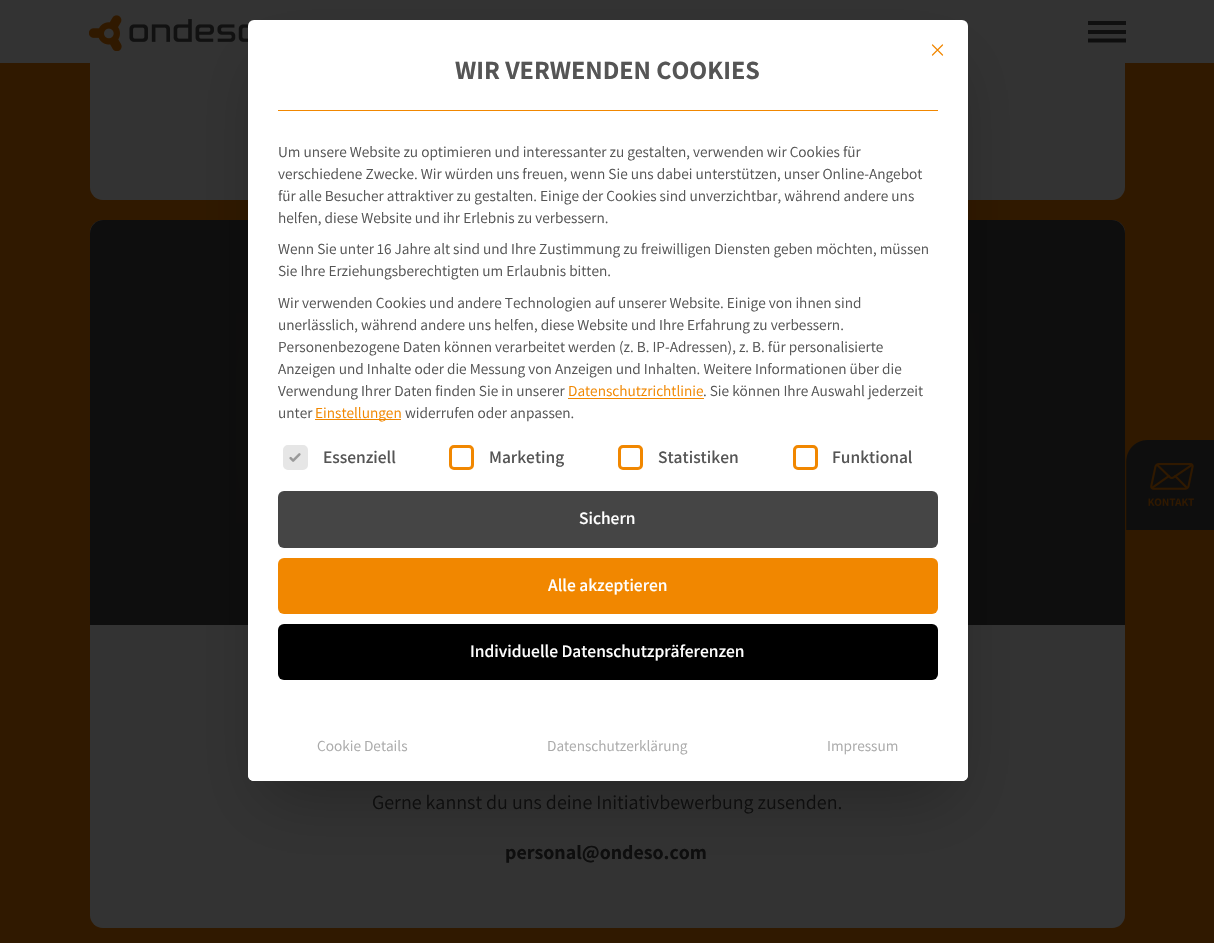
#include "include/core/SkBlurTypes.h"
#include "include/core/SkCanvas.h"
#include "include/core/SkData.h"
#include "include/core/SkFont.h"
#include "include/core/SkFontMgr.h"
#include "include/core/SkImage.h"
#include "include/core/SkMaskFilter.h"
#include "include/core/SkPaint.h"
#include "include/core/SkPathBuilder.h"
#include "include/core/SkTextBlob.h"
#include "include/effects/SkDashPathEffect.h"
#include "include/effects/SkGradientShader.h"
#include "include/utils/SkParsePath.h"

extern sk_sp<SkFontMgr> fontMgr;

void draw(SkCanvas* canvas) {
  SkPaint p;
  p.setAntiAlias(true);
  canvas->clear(SkColorSetRGB(48, 25, 0));
  p.setColor(SkColorSetRGB(51, 51, 51));
  canvas->drawRoundRect(SkRect::MakeLTRB(90, -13, 1125, 200), 13, 13, p);
  canvas->drawRect(SkRect::MakeLTRB(0, 0, 1214, 63), p);
  canvas->drawImageRect(SkImages::DeferredFromEncodedData(SkData::MakeFromFileName("images/1.png")), SkRect::MakeLTRB(89, 15, 249, 51), SkSamplingOptions());
  p.setColor(SkColorSetRGB(16, 16, 16));
  canvas->drawRect(SkRect::MakeLTRB(1088, 21, 1126, 25), p);
  canvas->drawRect(SkRect::MakeLTRB(1088, 30, 1126, 34), p);
  canvas->save();
  canvas->clipRect(SkRect::MakeLTRB(1088, 21, 1126, 43));
  p.setStyle(SkPaint::kStroke_Style);
  p.setStrokeWidth(3.8f);
  p.setColor(SkColorSetRGB(14, 14, 14));
  canvas->drawPath(SkPathBuilder().moveTo(1126, 40.5f).lineTo(1087.5f, 40.5f).detach(), p);
  canvas->restore();
  p.setStyle(SkPaint::kFill_Style);
  p.setColor(SkColorSetRGB(51, 51, 51));
  canvas->drawRoundRect(SkRect::MakeLTRB(90, 220, 1125, 928), 13, 13, p);
  p.setColor(SkColorSetRGB(14, 14, 14));
  canvas->drawPath(SkPathBuilder().moveTo(103, 220).lineTo(1112, 220).cubicTo(1119, 220, 1125, 226, 1125, 233).lineTo(1125, 625).lineTo(90, 625).lineTo(90, 233).cubicTo(90, 226, 96, 220, 103, 220).close().detach(), p);
  canvas->drawImageRect(SkImages::DeferredFromEncodedData(SkData::MakeFromFileName("images/4.png")), SkRect::MakeLTRB(236, 313, 979, 523), SkSamplingOptions());
  p.setColor(SkColorSetARGB(64, 0, 0, 0));
  p.setMaskFilter(SkMaskFilter::MakeBlur(kNormal_SkBlurStyle, 31));
  canvas->drawRect(SkRect::MakeLTRB(263, 66, 953, 798), p);
  p.setMaskFilter(nullptr);
  p.setColor(SK_ColorWHITE);
  canvas->drawRoundRect(SkRect::MakeLTRB(248, 20, 968, 781), 6, 6, p);
  p.setStyle(SkPaint::kStroke_Style);
  p.setStrokeWidth(1.2f);
  p.setStrokeCap(SkPaint::kRound_Cap);
  p.setStrokeJoin(SkPaint::kRound_Join);
  p.setColor(SkColorSetRGB(241, 135, 0));
  canvas->drawPath(SkPathBuilder().moveTo(932.5f, 55).lineTo(942.5f, 45).moveTo(932.5f, 45).lineTo(942.5f, 55).detach(), p);
  p.setStyle(SkPaint::kFill_Style);
  canvas->drawRect(SkRect::MakeLTRB(278, 110, 938, 111), p);
  canvas->drawRect(SkRect::MakeLTRB(568, 398, 704, 399), p);
  canvas->drawRect(SkRect::MakeLTRB(315, 419, 401, 420), p);
  p.setColor(SkColorSetRGB(230, 230, 230));
  canvas->drawRoundRect(SkRect::MakeLTRB(284.5f, 446.5f, 306.5f, 468.5f), 3.5f, 3.5f, p);
  p.setStyle(SkPaint::kStroke_Style);
  p.setStrokeWidth(3);
  p.setStrokeCap(SkPaint::kButt_Cap);
  p.setStrokeJoin(SkPaint::kMiter_Join);
  canvas->drawRoundRect(SkRect::MakeLTRB(284.5f, 446.5f, 306.5f, 468.5f), 3.5f, 3.5f, p);
  canvas->drawImageRect(SkImages::DeferredFromEncodedData(SkData::MakeFromFileName("images/2.png")), SkRect::MakeLTRB(289, 453, 301, 462), SkSamplingOptions());
  p.setColor(SkColorSetRGB(241, 135, 0));
  canvas->drawRoundRect(SkRect::MakeLTRB(450.5f, 446.5f, 472.5f, 468.5f), 3.5f, 3.5f, p);
  canvas->drawRoundRect(SkRect::MakeLTRB(619.5f, 446.5f, 641.5f, 468.5f), 3.5f, 3.5f, p);
  canvas->drawRoundRect(SkRect::MakeLTRB(794.5f, 446.5f, 816.5f, 468.5f), 3.5f, 3.5f, p);
  p.setStyle(SkPaint::kFill_Style);
  p.setColor(SkColorSetRGB(69, 69, 69));
  canvas->drawRoundRect(SkRect::MakeLTRB(278, 491, 938, 548), 6, 6, p);
  p.setColor(SkColorSetRGB(241, 135, 0));
  canvas->drawRoundRect(SkRect::MakeLTRB(278, 558, 938, 614), 6, 6, p);
  p.setColor(SK_ColorBLACK);
  canvas->drawRoundRect(SkRect::MakeLTRB(278, 624, 938, 680), 6, 6, p);
  p.setColor(SK_ColorWHITE);
  canvas->drawPath(SkPathBuilder().moveTo(248, 710).lineTo(968, 710).lineTo(968, 775).cubicTo(968, 778.5f, 965.5f, 781, 962, 781).lineTo(254, 781).cubicTo(250.5f, 781, 248, 778.5f, 248, 775).close().detach(), p);
  canvas->drawImageRect(SkImages::DeferredFromEncodedData(SkData::MakeFromFileName("images/3.png")), SkRect::MakeLTRB(1126, 440, 1214, 530), SkSamplingOptions());
  SkFont font1(fontMgr->matchFamilyStyle("Assistant", SkFontStyle::Bold()), 26.25f);
  font1.setSubpixel(true);
  p.setColor(SkColorSetRGB(85, 85, 85));
  canvas->drawString("WIR VERWENDEN COOKIES", 455, 79, font1, p);
  SkFont font2(fontMgr->matchFamilyStyle("Assistant", SkFontStyle::Normal()), 15.3f);
  font2.setSubpixel(true);
  canvas->drawString("Um unsere Website zu optimieren und interessanter zu gestalten, verwenden wir Cookies für", 278, 157, font2, p);
  canvas->drawString("verschiedene Zwecke. Wir würden uns freuen, wenn Sie uns dabei unterstützen, unser Online-Angebot", 278, 179, font2, p);
  canvas->drawString("für alle Besucher attraktiver zu gestalten. Einige der Cookies sind unverzichtbar, während andere uns", 278, 201, font2, p);
  canvas->drawString("helfen, diese Website und ihr Erlebnis zu verbessern.", 278, 223, font2, p);
  canvas->drawString("Wenn Sie unter 16 Jahre alt sind und Ihre Zustimmung zu freiwilligen Diensten geben möchten, müssen", 278, 254, font2, p);
  canvas->drawString("Sie Ihre Erziehungsberechtigten um Erlaubnis bitten.", 278, 276, font2, p);
  canvas->drawString("Wir verwenden Cookies und andere Technologien auf unserer Website. Einige von ihnen sind", 278, 308, font2, p);
  canvas->drawString("unerlässlich, während andere uns helfen, diese Website und Ihre Erfahrung zu verbessern.", 278, 330, font2, p);
  canvas->drawString("Personenbezogene Daten können verarbeitet werden (z. B. IP-Adressen), z. B. für personalisierte", 278, 352, font2, p);
  canvas->drawString("Anzeigen und Inhalte oder die Messung von Anzeigen und Inhalten. Weitere Informationen über die", 278, 374, font2, p);
  canvas->drawString("Verwendung Ihrer Daten finden Sie in unserer", 278, 396, font2, p);
  p.setColor(SkColorSetRGB(241, 135, 0));
  canvas->drawString("Datenschutzrichtlinie", 568, 396, font2, p);
  p.setColor(SkColorSetRGB(85, 85, 85));
  canvas->drawString(". Sie können Ihre Auswahl jederzeit", 703, 396, font2, p);
  canvas->drawString("unter", 278, 418, font2, p);
  p.setColor(SkColorSetRGB(241, 135, 0));
  canvas->drawString("Einstellungen", 315, 418, font2, p);
  p.setColor(SkColorSetRGB(85, 85, 85));
  canvas->drawString("widerrufen oder anpassen.", 405, 418, font2, p);
  SkFont font3(fontMgr->matchFamilyStyle("Assistant", SkFontStyle(600, SkFontStyle::kNormal_Width, SkFontStyle::kUpright_Slant)), 17.5f);
  font3.setSubpixel(true);
  canvas->drawString("Essenziell", 323, 463, font3, p);
  canvas->drawString("Marketing", 489, 463, font3, p);
  canvas->drawString("Statistiken", 658, 463, font3, p);
  canvas->drawString("Funktional", 832, 463, font3, p);
  p.setColor(SK_ColorWHITE);
  canvas->drawString("Sichern", 579, 524, font3, p);
  canvas->drawString("Alle akzeptieren", 548, 591, font3, p);
  canvas->drawString("Individuelle Datenschutzpräferenzen", 470, 657, font3, p);
  p.setColor(SkColorSetRGB(170, 170, 170));
  canvas->drawString("Cookie Details", 317, 751, font2, p);
  canvas->drawString("Datenschutzerklärung", 547, 751, font2, p);
  canvas->drawString("Impressum", 827, 751, font2, p);
  SkFont font4(fontMgr->matchFamilyStyle("Assistant", SkFontStyle::Normal()), 20);
  font4.setSubpixel(true);
  p.setColor(SkColorSetRGB(14, 14, 14));
  canvas->drawString("Gerne kannst du uns deine Initiativbewerbung zusenden.", 372, 809, font4, p);
  SkFont font5(fontMgr->matchFamilyStyle("Assistant", SkFontStyle::Bold()), 20);
  font5.setSubpixel(true);
  canvas->drawString("personal@ondeso.com", 505, 859, font5, p);
}
